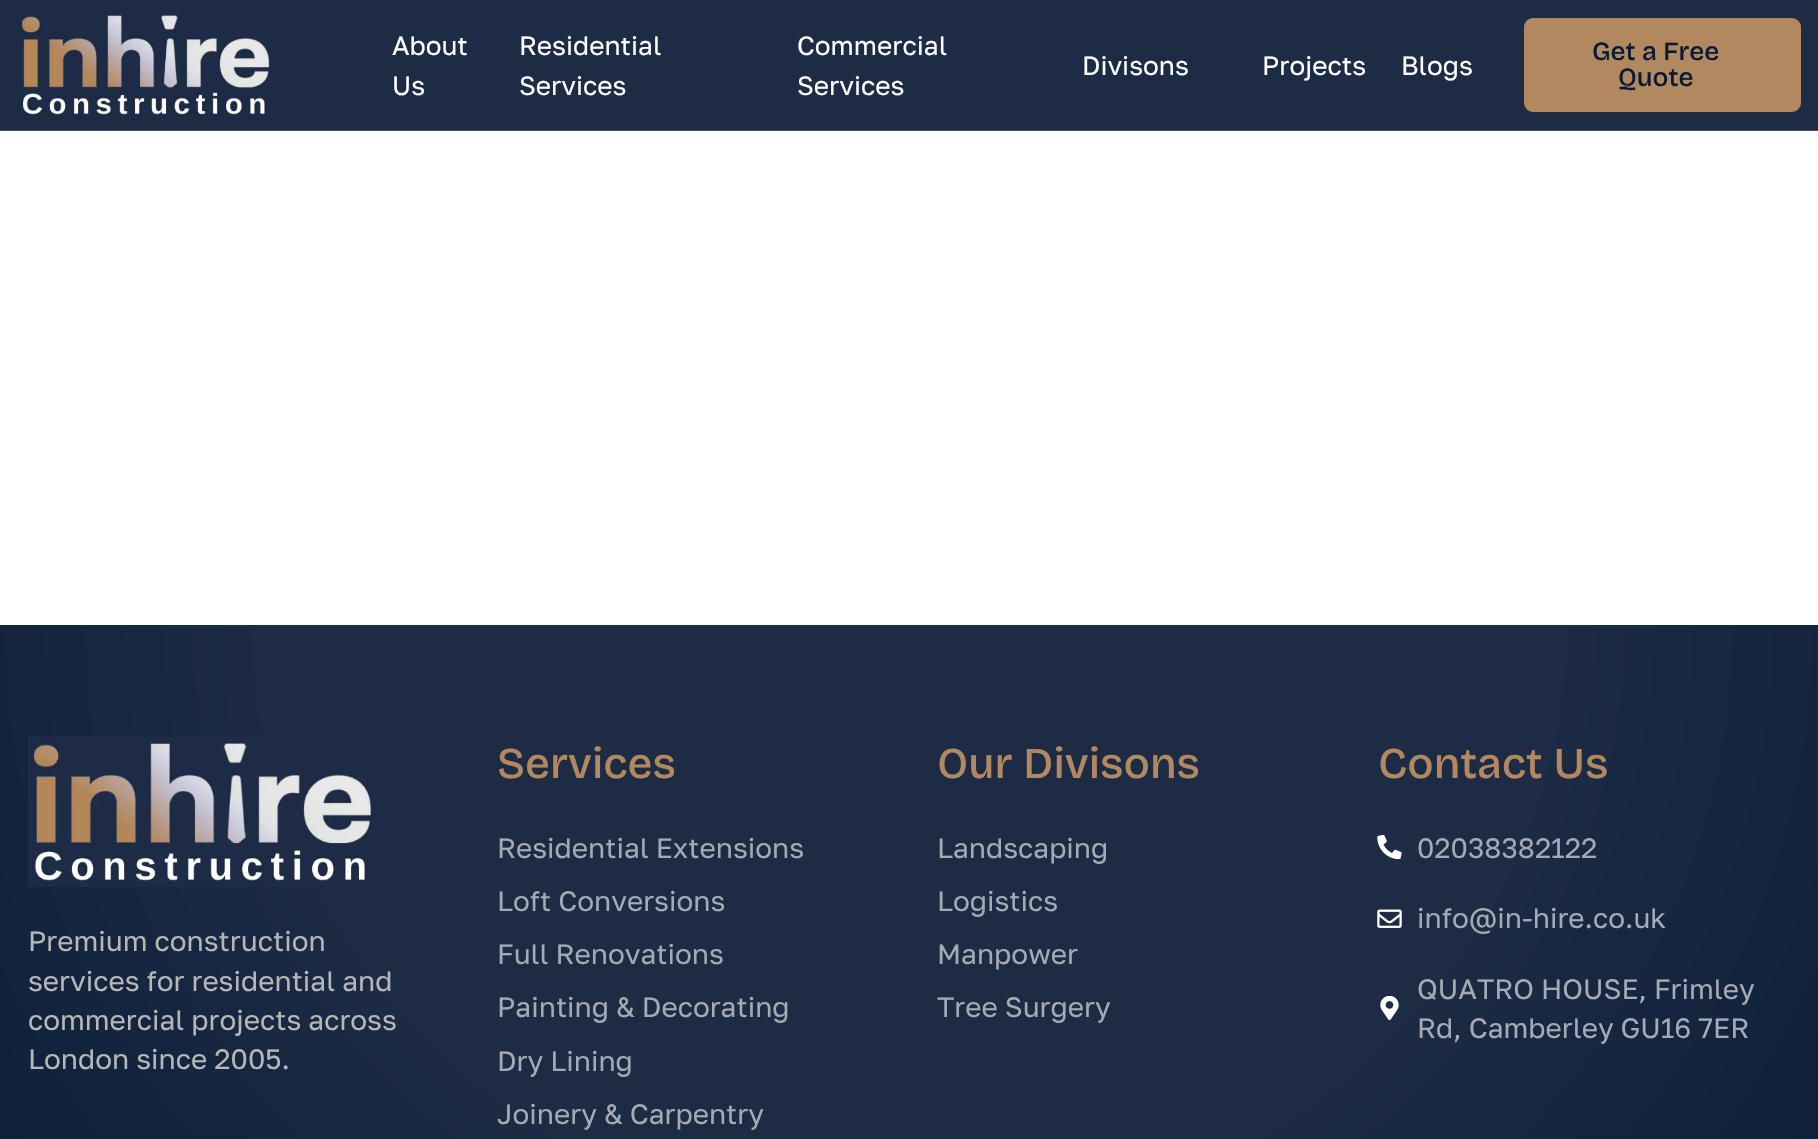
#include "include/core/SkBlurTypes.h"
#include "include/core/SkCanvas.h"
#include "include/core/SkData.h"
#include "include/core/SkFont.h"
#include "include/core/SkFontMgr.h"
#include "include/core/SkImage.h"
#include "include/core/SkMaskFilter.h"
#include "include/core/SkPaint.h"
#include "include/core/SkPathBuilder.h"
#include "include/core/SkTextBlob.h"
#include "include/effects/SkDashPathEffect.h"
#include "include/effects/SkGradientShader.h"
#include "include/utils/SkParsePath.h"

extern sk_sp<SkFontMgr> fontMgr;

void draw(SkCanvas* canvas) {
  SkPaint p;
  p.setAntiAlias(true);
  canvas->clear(SK_ColorWHITE);
  p.setColor(SkColorSetRGB(29, 43, 69));
  canvas->drawRect(SkRect::MakeLTRB(0, 0, 1818, 131), p);
  p.setColor(SkColorSetARGB(43, 255, 255, 255));
  canvas->drawRect(SkRect::MakeLTRB(0, 130, 1818, 131), p);
  canvas->drawImageRect(SkImages::DeferredFromEncodedData(SkData::MakeFromFileName("images/1.png")), SkRect::MakeLTRB(21, 14, 271, 116), SkSamplingOptions());
  p.setColor(SkColorSetRGB(178, 136, 97));
  canvas->drawRoundRect(SkRect::MakeLTRB(1524, 18, 1801, 112), 9, 9, p);
  {
    const SkColor colors[] = {SkColorSetRGB(29, 43, 69), SkColorSetRGB(7, 27, 52)};
    const float stops[] = {0.5f, 1};
    SkMatrix m = SkMatrix::Translate(909, 625).preScale(1286, 1193);
    p.setShader(SkGradientShader::MakeRadial({0, 0}, 1, colors, stops, 2, SkTileMode::kClamp, 0, &m));
    p.setAlpha(255);
  }
  canvas->drawRect(SkRect::MakeLTRB(0, 625, 1818, 1139), p);
  canvas->drawImageRect(SkImages::DeferredFromEncodedData(SkData::MakeFromFileName("images/2.png")), SkRect::MakeLTRB(28, 736, 374, 887), SkSamplingOptions());
  canvas->drawImageRect(SkImages::DeferredFromEncodedData(SkData::MakeFromFileName("images/3.png")), SkRect::MakeLTRB(1377, 835, 1402, 859), SkSamplingOptions());
  canvas->drawImageRect(SkImages::DeferredFromEncodedData(SkData::MakeFromFileName("images/4.png")), SkRect::MakeLTRB(1377, 909, 1402, 928), SkSamplingOptions());
  canvas->drawImageRect(SkImages::DeferredFromEncodedData(SkData::MakeFromFileName("images/5.png")), SkRect::MakeLTRB(1380, 996, 1399, 1020), SkSamplingOptions());
  SkFont font1(fontMgr->matchFamilyStyle("Golos Text", SkFontStyle::Normal()), 26.25f);
  font1.setSubpixel(true);
  p.setShader(nullptr);
  p.setColor(SK_ColorWHITE);
  canvas->drawString("About", 392, 55, font1, p);
  canvas->drawString("Us", 392, 95, font1, p);
  canvas->drawString("Residential", 519, 55, font1, p);
  canvas->drawString("Services", 519, 95, font1, p);
  canvas->drawString("Commercial", 797, 55, font1, p);
  canvas->drawString("Services", 797, 95, font1, p);
  canvas->drawString("Divisons", 1082, 75, font1, p);
  canvas->drawString("Projects", 1262, 75, font1, p);
  canvas->drawString("Blogs", 1401, 75, font1, p);
  SkFont font2(fontMgr->matchFamilyStyle("Bricolage Grotesque", SkFontStyle(500, SkFontStyle::kNormal_Width, SkFontStyle::kUpright_Slant)), 26.25f);
  font2.setSubpixel(true);
  p.setColor(SkColorSetRGB(7, 27, 52));
  canvas->drawString("Get a Free", 1592, 60, font2, p);
  canvas->drawString("Quote", 1618, 86, font2, p);
  SkFont font3(fontMgr->matchFamilyStyle("Golos Text", SkFontStyle::Normal()), 28);
  font3.setSubpixel(true);
  p.setColor(SkColorSetRGB(183, 183, 183));
  canvas->drawString("Premium construction", 28, 951, font3, p);
  canvas->drawString("services for residential and", 28, 991, font3, p);
  canvas->drawString("commercial projects across", 28, 1030, font3, p);
  canvas->drawString("London since 2005.", 28, 1069, font3, p);
  SkFont font4(fontMgr->matchFamilyStyle("Bricolage Grotesque", SkFontStyle(500, SkFontStyle::kNormal_Width, SkFontStyle::kUpright_Slant)), 43.75f);
  font4.setSubpixel(true);
  p.setColor(SkColorSetRGB(178, 136, 97));
  canvas->drawString("Services", 497, 778, font4, p);
  p.setColor(SkColorSetRGB(165, 170, 181));
  canvas->drawString("Residential Extensions", 497, 858, font3, p);
  canvas->drawString("Loft Conversions", 497, 911, font3, p);
  canvas->drawString("Full Renovations", 497, 964, font3, p);
  canvas->drawString("Painting & Decorating", 497, 1017, font3, p);
  canvas->drawString("Dry Lining", 497, 1071, font3, p);
  canvas->drawString("Joinery & Carpentry", 497, 1124, font3, p);
  p.setColor(SkColorSetRGB(178, 136, 97));
  canvas->drawString("Our Divisons", 937, 778, font4, p);
  p.setColor(SkColorSetRGB(165, 170, 181));
  canvas->drawString("Landscaping", 937, 858, font3, p);
  canvas->drawString("Logistics", 937, 911, font3, p);
  canvas->drawString("Manpower", 937, 964, font3, p);
  canvas->drawString("Tree Surgery", 937, 1017, font3, p);
  p.setColor(SkColorSetRGB(178, 136, 97));
  canvas->drawString("Contact Us", 1378, 778, font4, p);
  p.setColor(SkColorSetRGB(165, 170, 181));
  canvas->drawString("02038382122", 1417, 858, font3, p);
  canvas->drawString("info@in-hire.co.uk", 1417, 928, font3, p);
  canvas->drawString("QUATRO HOUSE, Frimley", 1417, 999, font3, p);
  canvas->drawString("Rd, Camberley GU16 7ER", 1417, 1038, font3, p);
}
